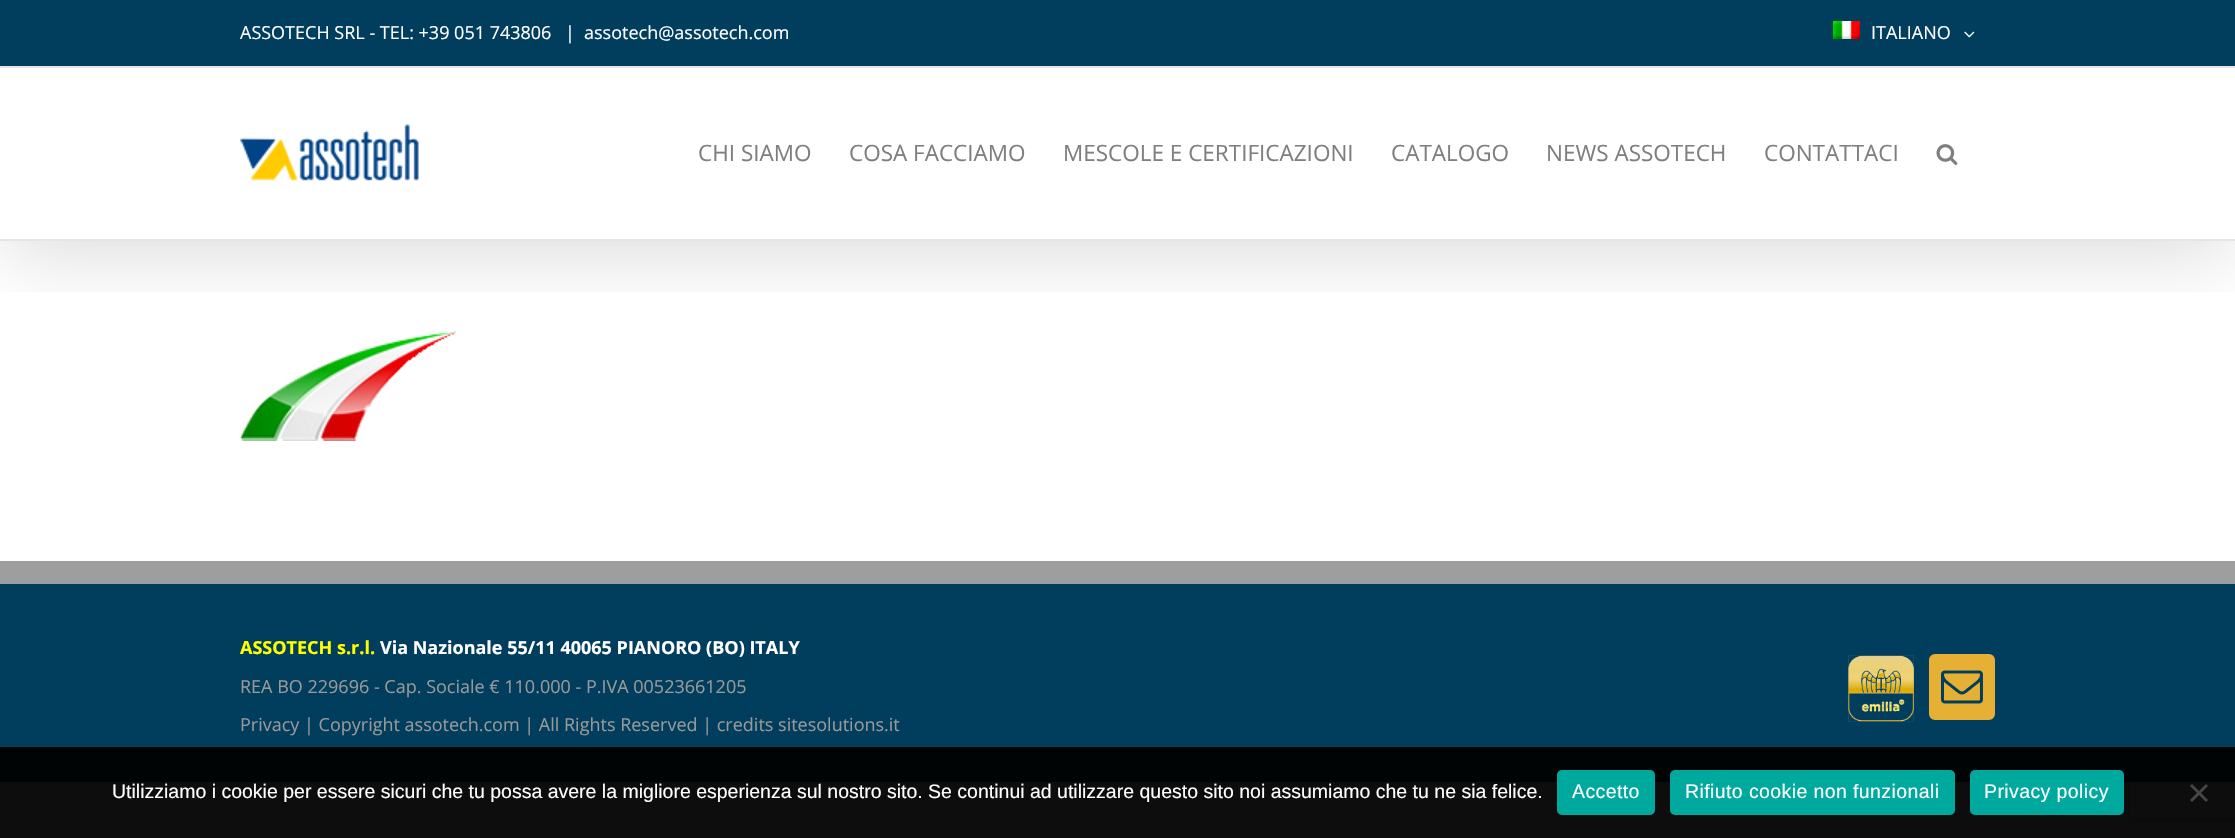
#include "include/core/SkBlurTypes.h"
#include "include/core/SkCanvas.h"
#include "include/core/SkData.h"
#include "include/core/SkFont.h"
#include "include/core/SkFontMgr.h"
#include "include/core/SkImage.h"
#include "include/core/SkMaskFilter.h"
#include "include/core/SkPaint.h"
#include "include/core/SkPathBuilder.h"
#include "include/core/SkTextBlob.h"
#include "include/effects/SkDashPathEffect.h"
#include "include/effects/SkGradientShader.h"
#include "include/utils/SkParsePath.h"

extern sk_sp<SkFontMgr> fontMgr;

void draw(SkCanvas* canvas) {
  SkPaint p;
  p.setAntiAlias(true);
  auto spacedText = [&](const char* s, float x, float y, const SkFont& font, const SkPaint& ink, float letter, float word) {
    std::vector<SkGlyphID> glyphs(font.countText(s, strlen(s), SkTextEncoding::kUTF8));
    std::vector<float> xs(glyphs.size());
    font.textToGlyphs(s, strlen(s), SkTextEncoding::kUTF8, glyphs);
    font.getXPos(glyphs, xs, x);
    float extra = 0;
    for (size_t i = 0; i < glyphs.size(); i++) {
      xs[i] += extra;
      extra += letter + word * (glyphs[i] == font.unicharToGlyph(' '));
    }
    canvas->drawTextBlob(SkTextBlob::MakeFromPosHGlyphs(glyphs, xs, y, font), 0, 0, ink);
  };
  canvas->clear(SK_ColorWHITE);
  canvas->drawImageRect(SkImages::DeferredFromEncodedData(SkData::MakeFromFileName("images/5.png")), SkRect::MakeLTRB(240, 331, 457, 441), SkSamplingOptions());
  canvas->save();
  canvas->clipRect(SkRect::MakeLTRB(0, 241, 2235, 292));
  p.setColor(SkColorSetARGB(36, 0, 0, 0));
  p.setMaskFilter(SkMaskFilter::MakeBlur(kNormal_SkBlurStyle, 37.5f));
  canvas->drawRect(SkRect::MakeLTRB(3, 18, 2232, 252), p);
  p.setMaskFilter(nullptr);
  canvas->restore();
  p.setColor(SkColorSetRGB(1, 62, 93));
  canvas->drawRect(SkRect::MakeLTRB(0, 0, 2235, 66), p);
  p.setColor(SkColorSetRGB(229, 229, 229));
  canvas->drawRect(SkRect::MakeLTRB(0, 66, 2235, 68), p);
  canvas->drawImageRect(SkImages::DeferredFromEncodedData(SkData::MakeFromFileName("images/1.png")), SkRect::MakeLTRB(1833, 21, 1860, 39), SkSamplingOptions());
  canvas->drawImageRect(SkImages::DeferredFromEncodedData(SkData::MakeFromFileName("images/2.png")), SkRect::MakeLTRB(1964, 31, 1975, 38), SkSamplingOptions());
  canvas->drawRect(SkRect::MakeLTRB(0, 239, 2235, 241), p);
  canvas->drawImageRect(SkImages::DeferredFromEncodedData(SkData::MakeFromFileName("images/3.png")), SkRect::MakeLTRB(240, 124, 419, 181), SkSamplingOptions());
  canvas->drawImageRect(SkImages::DeferredFromEncodedData(SkData::MakeFromFileName("images/4.png")), SkRect::MakeLTRB(1936, 144, 1958, 165), SkSamplingOptions());
  canvas->save();
  canvas->clipPath(SkPathBuilder(SkPathFillType::kEvenOdd).moveTo(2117, 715).lineTo(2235, 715).lineTo(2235, 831).lineTo(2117, 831).close().moveTo(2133, 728).lineTo(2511, 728).cubicTo(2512.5f, 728, 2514, 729.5f, 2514, 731).lineTo(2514, 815).cubicTo(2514, 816.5f, 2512.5f, 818, 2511, 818).lineTo(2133, 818).cubicTo(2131.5f, 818, 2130, 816.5f, 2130, 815).lineTo(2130, 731).cubicTo(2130, 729.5f, 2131.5f, 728, 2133, 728).close().detach(), true);
  p.setColor(SkColorSetRGB(128, 128, 128));
  p.setMaskFilter(SkMaskFilter::MakeBlur(kNormal_SkBlurStyle, 4));
  canvas->drawRoundRect(SkRect::MakeLTRB(2130, 728, 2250, 818), 3, 3, p);
  p.setMaskFilter(nullptr);
  canvas->restore();
  p.setColor(SkColorSetRGB(1, 62, 93));
  canvas->drawRect(SkRect::MakeLTRB(0, 584, 2235, 782), p);
  p.setColor(SkColorSetRGB(158, 158, 158));
  canvas->drawRect(SkRect::MakeLTRB(0, 561, 2235, 584), p);
  canvas->drawImageRect(SkImages::DeferredFromEncodedData(SkData::MakeFromFileName("images/6.png")), SkRect::MakeLTRB(1848, 655, 1914, 722), SkSamplingOptions());
  p.setColor(SkColorSetRGB(229, 176, 52));
  canvas->drawRoundRect(SkRect::MakeLTRB(1930, 655, 1994, 719), 5, 5, p);
  p.setStyle(SkPaint::kStroke_Style);
  p.setStrokeWidth(2);
  canvas->drawRoundRect(SkRect::MakeLTRB(1930, 655, 1994, 719), 5, 5, p);
  canvas->drawImageRect(SkImages::DeferredFromEncodedData(SkData::MakeFromFileName("images/7.png")), SkRect::MakeLTRB(1941, 670, 1983, 704), SkSamplingOptions());
  p.setStyle(SkPaint::kFill_Style);
  p.setColor(SkColorSetARGB(242, 0, 0, 0));
  canvas->drawRect(SkRect::MakeLTRB(0, 747, 2235, 838), p);
  p.setColor(SkColorSetRGB(0, 169, 157));
  canvas->drawRoundRect(SkRect::MakeLTRB(1557, 770, 1655, 815), 5, 5, p);
  canvas->drawRoundRect(SkRect::MakeLTRB(1670, 770, 1955, 815), 5, 5, p);
  canvas->drawRoundRect(SkRect::MakeLTRB(1970, 770, 2124, 815), 5, 5, p);
  p.setColor(SkColorSetRGB(70, 70, 70));
  canvas->drawPath(SkPathBuilder().moveTo(2206, 784).lineTo(2208, 786).lineTo(2192, 802).lineTo(2190, 800).close().detach(), p);
  canvas->drawPath(SkPathBuilder().moveTo(2190, 786).lineTo(2192, 784).lineTo(2208, 800).lineTo(2206, 802).close().detach(), p);
  SkFont font1(fontMgr->matchFamilyStyle("Open Sans", SkFontStyle::Normal()), 18);
  font1.setSubpixel(true);
  p.setColor(SK_ColorWHITE);
  canvas->drawString("ASSOTECH SRL - TEL: +39 051 743806", 240, 39, font1, p);
  canvas->drawString("|", 565, 39, font1, p);
  canvas->drawString("assotech@assotech.com", 584, 39, font1, p);
  canvas->drawString("ITALIANO", 1871, 39, font1, p);
  SkFont font2(fontMgr->matchFamilyStyle("Open Sans", SkFontStyle::Normal()), 22.5f);
  font2.setSubpixel(true);
  p.setColor(SkColorSetRGB(127, 127, 127));
  canvas->drawString("CHI SIAMO", 698, 161, font2, p);
  canvas->drawString("COSA FACCIAMO", 849, 161, font2, p);
  canvas->drawString("MESCOLE E CERTIFICAZIONI", 1063, 161, font2, p);
  canvas->drawString("CATALOGO", 1391, 161, font2, p);
  canvas->drawString("NEWS ASSOTECH", 1546, 161, font2, p);
  canvas->drawString("CONTATTACI", 1764, 161, font2, p);
  SkFont font3(fontMgr->matchFamilyStyle("Open Sans", SkFontStyle::Bold()), 18);
  font3.setSubpixel(true);
  p.setColor(SkColorSetRGB(255, 255, 0));
  canvas->drawString("ASSOTECH s.r.l.", 240, 654, font3, p);
  p.setColor(SK_ColorWHITE);
  canvas->drawString("Via Nazionale 55/11 40065 PIANORO (BO) ITALY", 380, 654, font3, p);
  p.setColor(SkColorSetRGB(153, 153, 153));
  canvas->drawString("REA BO 229696 - Cap. Sociale € 110.000 - P.IVA 00523661205", 240, 693, font1, p);
  canvas->drawString("Privacy | Copyright assotech.com | All Rights Reserved | credits sitesolutions.it", 240, 731, font1, p);
  SkFont font4(fontMgr->matchFamilyStyle("Liberation Sans", SkFontStyle::Normal()), 19.5f);
  font4.setSubpixel(true);
  p.setColor(SK_ColorWHITE);
  canvas->drawString("Utilizziamo i cookie per essere sicuri che tu possa avere la migliore esperienza sul nostro sito. Se continui ad utilizzare questo sito noi assumiamo che tu ne sia felice.", 112, 798, font4, p);
  spacedText("Accetto", 1572, 798, font4, p, 0.4f, 0);
  spacedText("Rifiuto cookie non funzionali", 1685, 798, font4, p, 0.4f, 0);
  spacedText("Privacy policy", 1984, 798, font4, p, 0.4f, 0);
}
